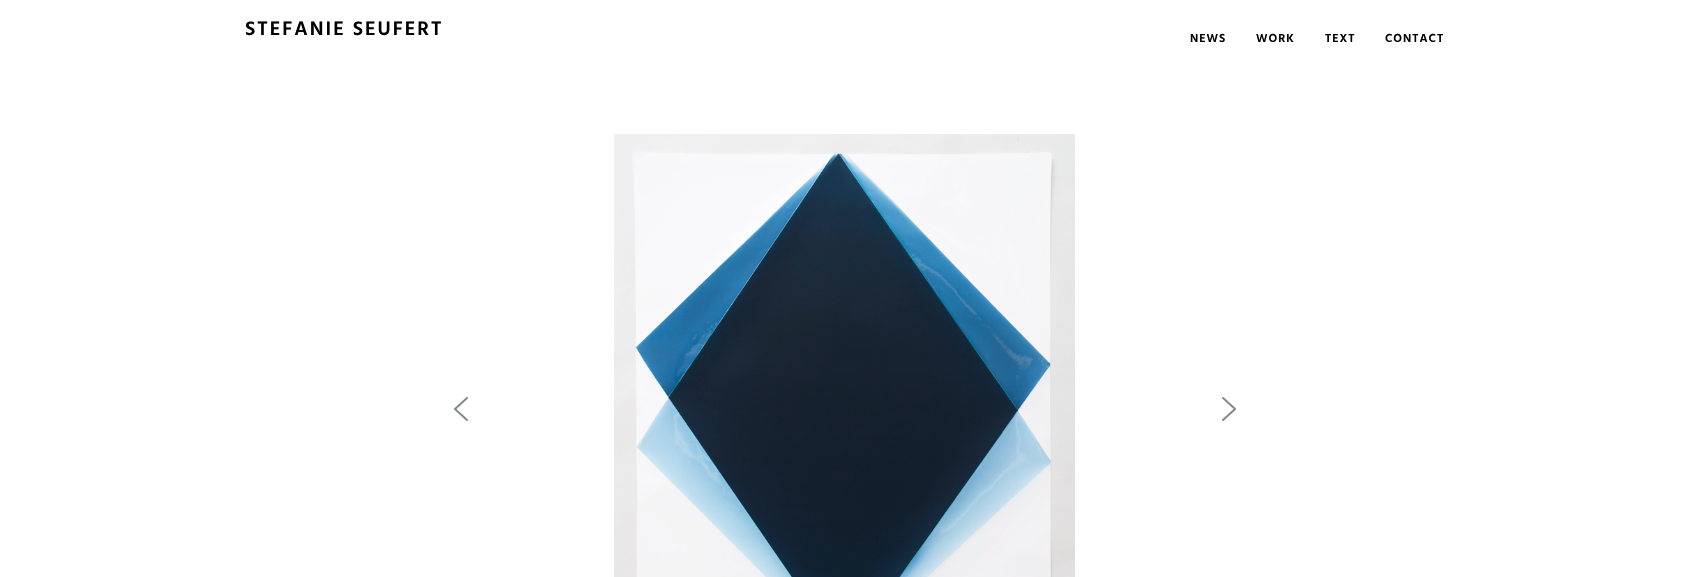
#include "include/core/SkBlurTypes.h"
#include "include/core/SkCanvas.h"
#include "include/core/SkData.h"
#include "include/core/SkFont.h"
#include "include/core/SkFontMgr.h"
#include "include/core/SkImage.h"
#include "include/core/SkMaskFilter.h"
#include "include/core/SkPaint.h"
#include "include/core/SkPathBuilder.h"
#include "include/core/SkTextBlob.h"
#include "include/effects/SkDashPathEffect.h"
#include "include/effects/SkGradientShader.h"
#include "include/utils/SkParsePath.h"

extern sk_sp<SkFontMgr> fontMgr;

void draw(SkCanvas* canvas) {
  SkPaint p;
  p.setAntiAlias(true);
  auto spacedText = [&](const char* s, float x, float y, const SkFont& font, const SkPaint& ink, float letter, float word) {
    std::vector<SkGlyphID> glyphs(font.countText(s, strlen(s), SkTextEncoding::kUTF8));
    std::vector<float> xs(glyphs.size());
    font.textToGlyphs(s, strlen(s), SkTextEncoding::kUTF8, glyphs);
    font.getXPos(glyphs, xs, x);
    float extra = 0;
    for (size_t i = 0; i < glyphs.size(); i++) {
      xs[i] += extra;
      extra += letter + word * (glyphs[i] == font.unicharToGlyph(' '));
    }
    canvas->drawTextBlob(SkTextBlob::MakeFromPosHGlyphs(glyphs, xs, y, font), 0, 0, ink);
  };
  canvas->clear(SK_ColorWHITE);
  canvas->drawImageRect(SkImages::DeferredFromEncodedData(SkData::MakeFromFileName("images/1.png")), SkRect::MakeLTRB(454, 397, 468, 421), SkSamplingOptions());
  canvas->drawImageRect(SkImages::DeferredFromEncodedData(SkData::MakeFromFileName("images/2.png")), SkRect::MakeLTRB(614, 134, 1075, 577), SkSamplingOptions());
  canvas->drawImageRect(SkImages::DeferredFromEncodedData(SkData::MakeFromFileName("images/3.png")), SkRect::MakeLTRB(1222, 397, 1236, 421), SkSamplingOptions());
  SkFont font1(fontMgr->matchFamilyStyle("Hind", SkFontStyle(600, SkFontStyle::kNormal_Width, SkFontStyle::kUpright_Slant)), 20);
  font1.setSubpixel(true);
  p.setColor(SK_ColorBLACK);
  spacedText("STEFANIE SEUFERT", 245, 35, font1, p, 2, 0);
  SkFont font2(fontMgr->matchFamilyStyle("Hind", SkFontStyle(600, SkFontStyle::kNormal_Width, SkFontStyle::kUpright_Slant)), 12);
  font2.setSubpixel(true);
  spacedText("NEWS", 1190, 42, font2, p, 1, 0);
  spacedText("WORK", 1256, 42, font2, p, 1, 0);
  spacedText("TEXT", 1325, 42, font2, p, 1, 0);
  spacedText("CONTACT", 1385, 42, font2, p, 1, 0);
}
